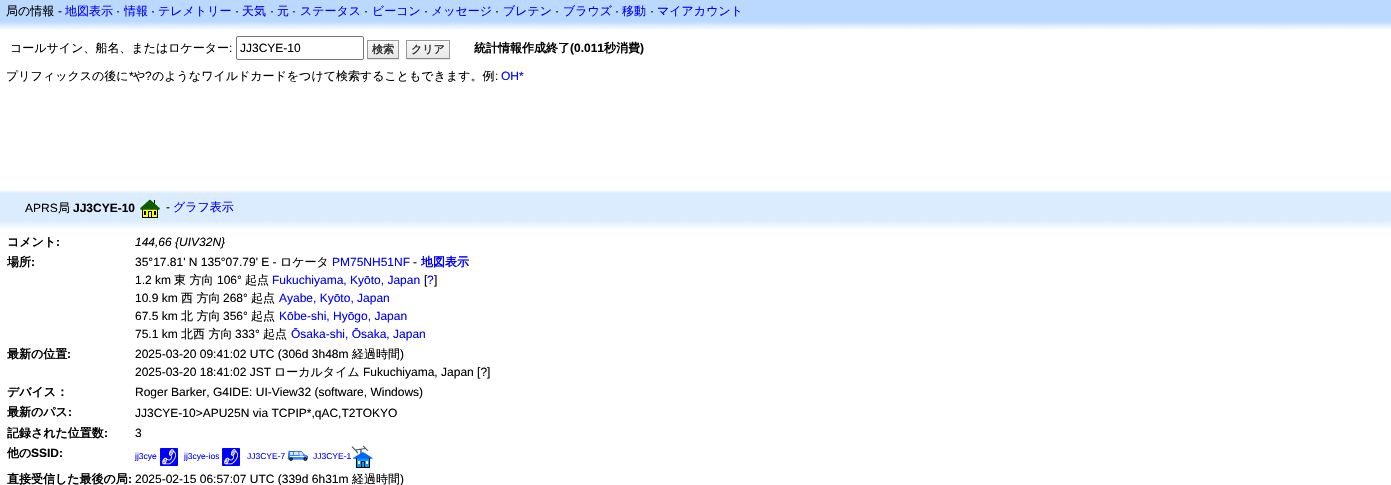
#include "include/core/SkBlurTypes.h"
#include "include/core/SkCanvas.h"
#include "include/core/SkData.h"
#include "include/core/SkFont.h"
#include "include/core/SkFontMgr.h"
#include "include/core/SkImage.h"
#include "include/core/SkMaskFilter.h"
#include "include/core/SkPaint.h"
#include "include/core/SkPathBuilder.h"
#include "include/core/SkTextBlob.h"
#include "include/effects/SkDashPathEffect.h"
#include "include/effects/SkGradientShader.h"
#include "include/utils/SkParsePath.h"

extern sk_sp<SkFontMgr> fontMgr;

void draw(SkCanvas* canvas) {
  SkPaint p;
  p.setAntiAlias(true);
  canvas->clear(SK_ColorWHITE);
  p.setColor(SkColorSetRGB(187, 217, 255));
  canvas->drawRect(SkRect::MakeLTRB(0, 0, 1391, 20), p);
  canvas->drawImageRect(SkImages::DeferredFromEncodedData(SkData::MakeFromFileName("images/1.png")), SkRect::MakeLTRB(0, 20, 1391, 30), SkSamplingOptions());
  p.setStyle(SkPaint::kStroke_Style);
  p.setStrokeWidth(1);
  p.setColor(SkColorSetRGB(118, 118, 118));
  canvas->drawRoundRect(SkRect::MakeLTRB(236.5f, 36.5f, 363.5f, 59.5f), 1.5f, 1.5f, p);
  p.setStyle(SkPaint::kFill_Style);
  p.setColor(SkColorSetRGB(230, 230, 230));
  canvas->drawRect(SkRect::MakeLTRB(367, 59, 399, 60), p);
  canvas->drawImageRect(SkImages::DeferredFromEncodedData(SkData::MakeFromFileName("images/2.png")), SkRect::MakeLTRB(368, 41, 398, 58), SkSamplingOptions());
  p.setColor(SkColorSetRGB(153, 153, 153));
  canvas->drawRect(SkRect::MakeLTRB(367, 40, 399, 41), p);
  canvas->drawRect(SkRect::MakeLTRB(398, 40, 399, 59), p);
  p.setColor(SkColorSetRGB(136, 136, 136));
  canvas->drawRect(SkRect::MakeLTRB(367, 58, 399, 59), p);
  p.setColor(SkColorSetRGB(153, 153, 153));
  canvas->drawRect(SkRect::MakeLTRB(367, 40, 368, 59), p);
  p.setColor(SkColorSetRGB(230, 230, 230));
  canvas->drawRect(SkRect::MakeLTRB(406, 59, 450, 60), p);
  canvas->drawImageRect(SkImages::DeferredFromEncodedData(SkData::MakeFromFileName("images/3.png")), SkRect::MakeLTRB(407, 41, 449, 58), SkSamplingOptions());
  p.setColor(SkColorSetRGB(153, 153, 153));
  canvas->drawRect(SkRect::MakeLTRB(406, 40, 450, 41), p);
  canvas->drawRect(SkRect::MakeLTRB(449, 40, 450, 59), p);
  p.setColor(SkColorSetRGB(136, 136, 136));
  canvas->drawRect(SkRect::MakeLTRB(406, 58, 450, 59), p);
  p.setColor(SkColorSetRGB(153, 153, 153));
  canvas->drawRect(SkRect::MakeLTRB(406, 40, 407, 59), p);
  canvas->drawImageRect(SkImages::DeferredFromEncodedData(SkData::MakeFromFileName("images/4.png")), SkRect::MakeLTRB(0, 190, 1391, 194), SkSamplingOptions());
  p.setColor(SkColorSetRGB(220, 236, 255));
  canvas->drawRect(SkRect::MakeLTRB(0, 194, 1391, 220), p);
  canvas->drawImageRect(SkImages::DeferredFromEncodedData(SkData::MakeFromFileName("images/5.png")), SkRect::MakeLTRB(140, 199, 160, 218), SkSamplingOptions());
  canvas->drawImageRect(SkImages::DeferredFromEncodedData(SkData::MakeFromFileName("images/6.png")), SkRect::MakeLTRB(0, 220, 1391, 229), SkSamplingOptions());
  canvas->drawImageRect(SkImages::DeferredFromEncodedData(SkData::MakeFromFileName("images/7.png")), SkRect::MakeLTRB(160, 448, 178, 466), SkSamplingOptions());
  canvas->drawImageRect(SkImages::DeferredFromEncodedData(SkData::MakeFromFileName("images/7.png")), SkRect::MakeLTRB(222, 448, 240, 466), SkSamplingOptions());
  canvas->drawImageRect(SkImages::DeferredFromEncodedData(SkData::MakeFromFileName("images/8.png")), SkRect::MakeLTRB(287, 451, 308, 461), SkSamplingOptions());
  canvas->drawImageRect(SkImages::DeferredFromEncodedData(SkData::MakeFromFileName("images/9.png")), SkRect::MakeLTRB(351, 445, 373, 468), SkSamplingOptions());
  SkFont font1(fontMgr->matchFamilyStyle("WenQuanYi Zen Hei", SkFontStyle(500, SkFontStyle::kNormal_Width, SkFontStyle::kUpright_Slant)), 12);
  font1.setSubpixel(true);
  p.setColor(SK_ColorBLACK);
  canvas->drawString("局の情報", 6, 15, font1, p);
  SkFont font2(fontMgr->matchFamilyStyle("Liberation Sans", SkFontStyle::Normal()), 12);
  font2.setSubpixel(true);
  canvas->drawString("-", 58, 15, font2, p);
  p.setColor(SkColorSetRGB(0, 0, 255));
  canvas->drawString("地図表示", 65, 15, font1, p);
  p.setColor(SK_ColorBLACK);
  canvas->drawString("·", 116, 15, font2, p);
  p.setColor(SkColorSetRGB(0, 0, 255));
  canvas->drawString("情報", 124, 15, font1, p);
  p.setColor(SK_ColorBLACK);
  canvas->drawString("·", 151, 15, font2, p);
  p.setColor(SkColorSetRGB(0, 0, 255));
  canvas->drawString("テレメトリー", 158, 15, font1, p);
  p.setColor(SK_ColorBLACK);
  canvas->drawString("·", 235, 15, font2, p);
  p.setColor(SkColorSetRGB(0, 0, 255));
  canvas->drawString("天気", 242, 15, font1, p);
  p.setColor(SK_ColorBLACK);
  canvas->drawString("·", 270, 15, font2, p);
  p.setColor(SkColorSetRGB(0, 0, 255));
  canvas->drawString("元", 277, 15, font1, p);
  p.setColor(SK_ColorBLACK);
  canvas->drawString("·", 292, 15, font2, p);
  p.setColor(SkColorSetRGB(0, 0, 255));
  canvas->drawString("ステータス", 300, 15, font1, p);
  p.setColor(SK_ColorBLACK);
  canvas->drawString("·", 364, 15, font2, p);
  p.setColor(SkColorSetRGB(0, 0, 255));
  canvas->drawString("ビーコン", 372, 15, font1, p);
  p.setColor(SK_ColorBLACK);
  canvas->drawString("·", 424, 15, font2, p);
  p.setColor(SkColorSetRGB(0, 0, 255));
  canvas->drawString("メッセージ", 431, 15, font1, p);
  p.setColor(SK_ColorBLACK);
  canvas->drawString("·", 495, 15, font2, p);
  p.setColor(SkColorSetRGB(0, 0, 255));
  canvas->drawString("ブレテン", 503, 15, font1, p);
  p.setColor(SK_ColorBLACK);
  canvas->drawString("·", 555, 15, font2, p);
  p.setColor(SkColorSetRGB(0, 0, 255));
  canvas->drawString("ブラウズ", 563, 15, font1, p);
  p.setColor(SK_ColorBLACK);
  canvas->drawString("·", 615, 15, font2, p);
  p.setColor(SkColorSetRGB(0, 0, 255));
  canvas->drawString("移動", 622, 15, font1, p);
  p.setColor(SK_ColorBLACK);
  canvas->drawString("·", 650, 15, font2, p);
  p.setColor(SkColorSetRGB(0, 0, 255));
  canvas->drawString("マイアカウント", 657, 15, font1, p);
  p.setColor(SK_ColorBLACK);
  canvas->drawString("コールサイン、船名、またはロケーター", 10, 52, font1, p);
  canvas->drawString(":", 229, 52, font2, p);
  canvas->drawString("JJ3CYE-10", 240, 52, font2, p);
  SkFont font3(fontMgr->matchFamilyStyle("WenQuanYi Zen Hei", SkFontStyle::Bold()), 11);
  font3.setSubpixel(true);
  p.setColor(SkColorSetRGB(51, 51, 51));
  canvas->drawString("検索", 372, 53, font3, p);
  canvas->drawString("クリア", 411, 53, font3, p);
  SkFont font4(fontMgr->matchFamilyStyle("WenQuanYi Zen Hei", SkFontStyle::Bold()), 12);
  font4.setSubpixel(true);
  p.setColor(SK_ColorBLACK);
  canvas->drawString("統計情報作成終了", 474, 52, font4, p);
  SkFont font5(fontMgr->matchFamilyStyle("Liberation Sans", SkFontStyle::Bold()), 12);
  font5.setSubpixel(true);
  canvas->drawString("(0.011", 570, 52, font5, p);
  canvas->drawString("秒消費", 604, 52, font4, p);
  canvas->drawString(")", 640, 52, font5, p);
  canvas->drawString("プリフィックスの後に", 6, 80, font1, p);
  canvas->drawString("*", 129, 80, font2, p);
  canvas->drawString("や", 133, 80, font1, p);
  canvas->drawString("?", 145, 80, font2, p);
  canvas->drawString("のようなワイルドカードをつけて検索することもできます。例", 152, 80, font1, p);
  canvas->drawString(":", 495, 80, font2, p);
  p.setColor(SkColorSetRGB(0, 0, 255));
  canvas->drawString("OH*", 501, 80, font2, p);
  p.setColor(SK_ColorBLACK);
  canvas->drawString("APRS", 25, 212, font2, p);
  canvas->drawString("局", 58, 212, font1, p);
  canvas->drawString("JJ3CYE-10", 73, 212, font5, p);
  canvas->drawString("-", 166, 211, font2, p);
  p.setColor(SkColorSetRGB(0, 0, 255));
  canvas->drawString("グラフ表示", 173, 211, font1, p);
  p.setColor(SK_ColorBLACK);
  canvas->drawString("コメント", 7, 246, font4, p);
  canvas->drawString(":", 56, 246, font5, p);
  SkFont font6(fontMgr->matchFamilyStyle("Liberation Sans", SkFontStyle::Italic()), 12);
  font6.setSubpixel(true);
  canvas->drawString("144,66 {UIV32N}", 135, 246, font6, p);
  canvas->drawString("場所", 7, 266, font4, p);
  canvas->drawString(":", 31, 266, font5, p);
  canvas->drawString("35°17.81' N 135°07.79' E -", 135, 266, font2, p);
  canvas->drawString("ロケータ", 280, 266, font1, p);
  p.setColor(SkColorSetRGB(0, 0, 255));
  canvas->drawString("PM75NH51NF", 332, 266, font2, p);
  p.setColor(SK_ColorBLACK);
  canvas->drawString("-", 413, 266, font2, p);
  p.setColor(SkColorSetRGB(0, 0, 255));
  canvas->drawString("地図表示", 421, 266, font4, p);
  p.setColor(SK_ColorBLACK);
  canvas->drawString("1.2 km", 135, 284, font2, p);
  canvas->drawString("東 方向", 174, 284, font1, p);
  canvas->drawString("106°", 217, 284, font2, p);
  canvas->drawString("起点", 245, 284, font1, p);
  p.setColor(SkColorSetRGB(0, 0, 255));
  canvas->drawString("Fukuchiyama, Kyōto, Japan", 272, 284, font2, p);
  p.setColor(SK_ColorBLACK);
  canvas->drawString("[", 424, 284, font2, p);
  p.setColor(SkColorSetRGB(0, 0, 255));
  canvas->drawString("?", 427, 284, font2, p);
  p.setColor(SK_ColorBLACK);
  canvas->drawString("]", 434, 284, font2, p);
  canvas->drawString("10.9 km", 135, 302, font2, p);
  canvas->drawString("西 方向", 181, 302, font1, p);
  canvas->drawString("268°", 223, 302, font2, p);
  canvas->drawString("起点", 251, 302, font1, p);
  p.setColor(SkColorSetRGB(0, 0, 255));
  canvas->drawString("Ayabe, Kyōto, Japan", 279, 302, font2, p);
  p.setColor(SK_ColorBLACK);
  canvas->drawString("67.5 km", 135, 320, font2, p);
  canvas->drawString("北 方向", 181, 320, font1, p);
  canvas->drawString("356°", 223, 320, font2, p);
  canvas->drawString("起点", 251, 320, font1, p);
  p.setColor(SkColorSetRGB(0, 0, 255));
  canvas->drawString("Kōbe-shi, Hyōgo, Japan", 279, 320, font2, p);
  p.setColor(SK_ColorBLACK);
  canvas->drawString("75.1 km", 135, 338, font2, p);
  canvas->drawString("北西 方向", 181, 338, font1, p);
  canvas->drawString("333°", 235, 338, font2, p);
  canvas->drawString("起点", 263, 338, font1, p);
  p.setColor(SkColorSetRGB(0, 0, 255));
  canvas->drawString("Ōsaka-shi, Ōsaka, Japan", 291, 338, font2, p);
  p.setColor(SK_ColorBLACK);
  canvas->drawString("最新の位置", 7, 358, font4, p);
  canvas->drawString(":", 67, 358, font5, p);
  canvas->drawString("2025-03-20 09:41:02 UTC (306d 3h48m", 135, 358, font2, p);
  canvas->drawString("経過時間", 352, 358, font1, p);
  canvas->drawString(")", 400, 358, font2, p);
  canvas->drawString("2025-03-20 18:41:02 JST", 135, 376, font2, p);
  canvas->drawString("ローカルタイム", 274, 376, font1, p);
  canvas->drawString("Fukuchiyama, Japan [?]", 363, 376, font2, p);
  canvas->drawString("デバイス：", 7, 396, font4, p);
  canvas->drawString("Roger Barker, G4IDE: UI-View32 (software, Windows)", 135, 396, font2, p);
  canvas->drawString("最新のパス", 7, 416, font4, p);
  canvas->drawString(":", 68, 416, font5, p);
  canvas->drawString("JJ3CYE-10>APU25N via TCPIP*,qAC,T2TOKYO", 135, 417, font2, p);
  canvas->drawString("記録された位置数", 7, 437, font4, p);
  canvas->drawString(":", 104, 437, font5, p);
  canvas->drawString("3", 135, 437, font2, p);
  canvas->drawString("他の", 7, 457, font4, p);
  canvas->drawString("SSID:", 31, 457, font5, p);
  SkFont font7(fontMgr->matchFamilyStyle("Liberation Sans", SkFontStyle::Normal()), 8.5f);
  font7.setSubpixel(true);
  p.setColor(SkColorSetRGB(0, 0, 255));
  canvas->drawString("jj3cye", 135, 459, font7, p);
  canvas->drawString("jj3cye-ios", 184, 459, font7, p);
  canvas->drawString("JJ3CYE-7", 247, 459, font7, p);
  canvas->drawString("JJ3CYE-1", 313, 459, font7, p);
  p.setColor(SK_ColorBLACK);
  canvas->drawString("直接受信した最後の局", 7, 483, font4, p);
  canvas->drawString(":", 128, 483, font5, p);
  canvas->drawString("2025-02-15 06:57:07 UTC (339d 6h31m", 135, 483, font2, p);
  canvas->drawString("経過時間", 352, 483, font1, p);
  canvas->drawString(")", 400, 483, font2, p);
}
